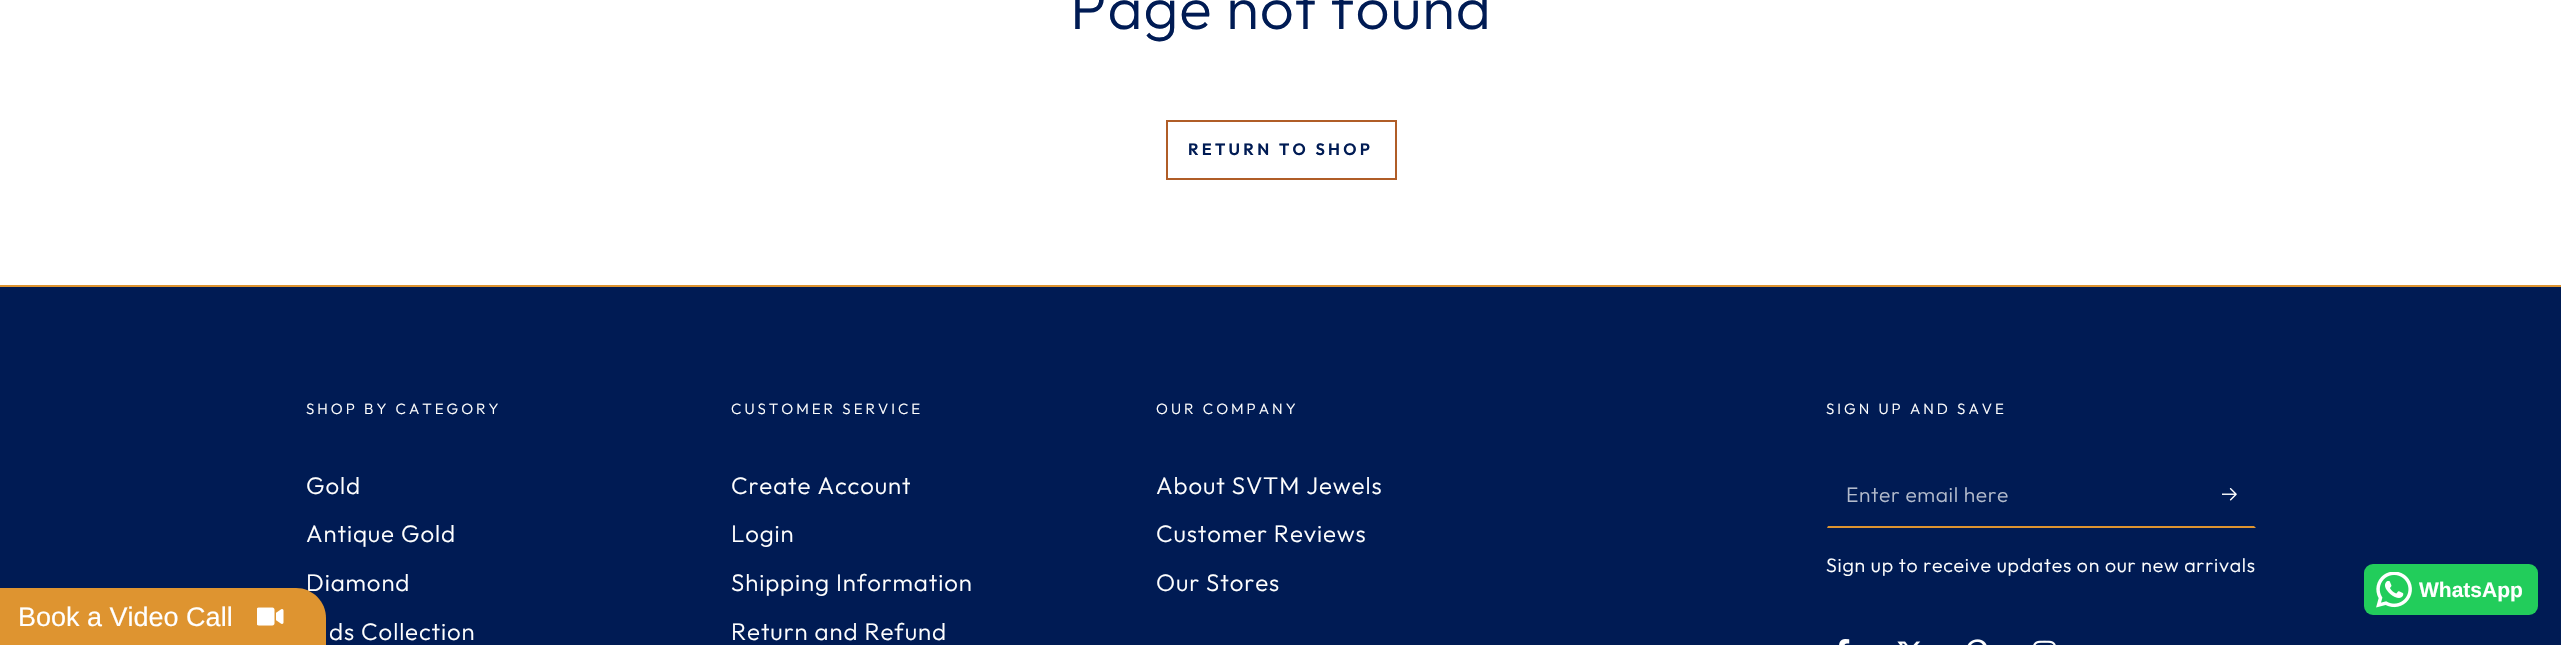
#include "include/core/SkBlurTypes.h"
#include "include/core/SkCanvas.h"
#include "include/core/SkData.h"
#include "include/core/SkFont.h"
#include "include/core/SkFontMgr.h"
#include "include/core/SkImage.h"
#include "include/core/SkMaskFilter.h"
#include "include/core/SkPaint.h"
#include "include/core/SkPathBuilder.h"
#include "include/core/SkTextBlob.h"
#include "include/effects/SkDashPathEffect.h"
#include "include/effects/SkGradientShader.h"
#include "include/utils/SkParsePath.h"

extern sk_sp<SkFontMgr> fontMgr;

void draw(SkCanvas* canvas) {
  SkPaint p;
  p.setAntiAlias(true);
  auto spacedText = [&](const char* s, float x, float y, const SkFont& font, const SkPaint& ink, float letter, float word) {
    std::vector<SkGlyphID> glyphs(font.countText(s, strlen(s), SkTextEncoding::kUTF8));
    std::vector<float> xs(glyphs.size());
    font.textToGlyphs(s, strlen(s), SkTextEncoding::kUTF8, glyphs);
    font.getXPos(glyphs, xs, x);
    float extra = 0;
    for (size_t i = 0; i < glyphs.size(); i++) {
      xs[i] += extra;
      extra += letter + word * (glyphs[i] == font.unicharToGlyph(' '));
    }
    canvas->drawTextBlob(SkTextBlob::MakeFromPosHGlyphs(glyphs, xs, y, font), 0, 0, ink);
  };
  canvas->clear(SK_ColorWHITE);
  p.setStyle(SkPaint::kStroke_Style);
  p.setStrokeWidth(2);
  p.setColor(SkColorSetRGB(176, 93, 39));
  canvas->drawRect(SkRect::MakeLTRB(1167, 121, 1396, 179), p);
  p.setStyle(SkPaint::kFill_Style);
  p.setColor(SkColorSetRGB(0, 27, 84));
  canvas->drawRect(SkRect::MakeLTRB(0, 287, 2561, 645), p);
  p.setColor(SkColorSetRGB(222, 148, 48));
  canvas->drawRect(SkRect::MakeLTRB(0, 285, 2561, 287), p);
  canvas->drawPath(SkPathBuilder().moveTo(2256, 528).lineTo(1827, 528).lineTo(1828, 526).lineTo(2254, 526).close().detach(), p);
  canvas->drawImageRect(SkImages::DeferredFromEncodedData(SkData::MakeFromFileName("images/1.png")), SkRect::MakeLTRB(2222, 488, 2237, 501), SkSamplingOptions());
  canvas->drawImageRect(SkImages::DeferredFromEncodedData(SkData::MakeFromFileName("images/2.png")), SkRect::MakeLTRB(1839, 639, 1850, 645), SkSamplingOptions());
  canvas->drawImageRect(SkImages::DeferredFromEncodedData(SkData::MakeFromFileName("images/3.png")), SkRect::MakeLTRB(1897, 641, 1921, 645), SkSamplingOptions());
  canvas->drawImageRect(SkImages::DeferredFromEncodedData(SkData::MakeFromFileName("images/4.png")), SkRect::MakeLTRB(1967, 639, 1987, 645), SkSamplingOptions());
  canvas->drawImageRect(SkImages::DeferredFromEncodedData(SkData::MakeFromFileName("images/5.png")), SkRect::MakeLTRB(2033, 640, 2056, 645), SkSamplingOptions());
  p.setColor(SkColorSetRGB(34, 205, 91));
  canvas->drawRoundRect(SkRect::MakeLTRB(2364, 564, 2538, 615), 9, 9, p);
  canvas->drawImageRect(SkImages::DeferredFromEncodedData(SkData::MakeFromFileName("images/6.png")), SkRect::MakeLTRB(2376, 572, 2412, 608), SkSamplingOptions());
  SkFont font1(fontMgr->matchFamilyStyle("Outfit", SkFontStyle(300, SkFontStyle::kNormal_Width, SkFontStyle::kUpright_Slant)), 60);
  font1.setSubpixel(true);
  p.setColor(SkColorSetRGB(0, 27, 84));
  spacedText("Page not found", 1070, 29, font1, p, 0.9f, 0);
  SkFont font2(fontMgr->matchFamilyStyle("Outfit", SkFontStyle(600, SkFontStyle::kNormal_Width, SkFontStyle::kUpright_Slant)), 16.5f);
  font2.setSubpixel(true);
  spacedText("RETURN TO SHOP", 1188, 155, font2, p, 3.25f, 0);
  SkFont font3(fontMgr->matchFamilyStyle("Outfit", SkFontStyle(300, SkFontStyle::kNormal_Width, SkFontStyle::kUpright_Slant)), 15);
  font3.setSubpixel(true);
  p.setColor(SK_ColorWHITE);
  spacedText("SHOP BY CATEGORY", 306, 414, font3, p, 3, 0);
  SkFont font4(fontMgr->matchFamilyStyle("Outfit", SkFontStyle(300, SkFontStyle::kNormal_Width, SkFontStyle::kUpright_Slant)), 24);
  font4.setSubpixel(true);
  spacedText("Gold", 306, 494, font4, p, 0.9f, 0);
  spacedText("Antique Gold", 306, 542, font4, p, 0.9f, 0);
  spacedText("Diamond", 306, 591, font4, p, 0.9f, 0);
  spacedText("ds Collection", 329, 640, font4, p, 0.9f, 0);
  spacedText("CUSTOMER SERVICE", 731, 414, font3, p, 3, 0);
  spacedText("Create Account", 731, 494, font4, p, 0.9f, 0);
  spacedText("Login", 731, 542, font4, p, 0.9f, 0);
  spacedText("Shipping Information", 731, 591, font4, p, 0.9f, 0);
  spacedText("Return and Refund", 731, 640, font4, p, 0.9f, 0);
  spacedText("OUR COMPANY", 1156, 414, font3, p, 3, 0);
  spacedText("About SVTM Jewels", 1156, 494, font4, p, 0.9f, 0);
  spacedText("Customer Reviews", 1156, 542, font4, p, 0.9f, 0);
  spacedText("Our Stores", 1156, 591, font4, p, 0.9f, 0);
  spacedText("SIGN UP AND SAVE", 1826, 414, font3, p, 3, 0);
  SkFont font5(fontMgr->matchFamilyStyle("Outfit", SkFontStyle(300, SkFontStyle::kNormal_Width, SkFontStyle::kUpright_Slant)), 21);
  font5.setSubpixel(true);
  p.setColor(SkColorSetRGB(179, 187, 204));
  spacedText("Enter email here", 1846, 502, font5, p, 0.6f, 0);
  SkFont font6(fontMgr->matchFamilyStyle("Outfit", SkFontStyle(300, SkFontStyle::kNormal_Width, SkFontStyle::kUpright_Slant)), 19.5f);
  font6.setSubpixel(true);
  p.setColor(SK_ColorWHITE);
  spacedText("Sign up to receive updates on our new arrivals", 1826, 572, font6, p, 0.75f, 0);
  SkFont font7(fontMgr->matchFamilyStyle("Liberation Sans", SkFontStyle::Bold()), 21);
  font7.setSubpixel(true);
  canvas->drawString("WhatsApp", 2419, 597, font7, p);
  p.setColor(SkColorSetRGB(222, 148, 48));
  canvas->drawPath(SkPathBuilder().moveTo(0, 588).lineTo(296, 588).cubicTo(312.5f, 588, 326, 601.5f, 326, 618).lineTo(326, 645).lineTo(0, 645).close().detach(), p);
  SkFont font8(fontMgr->matchFamilyStyle("Liberation Sans", SkFontStyle::Normal()), 27);
  font8.setSubpixel(true);
  p.setColor(SK_ColorWHITE);
  canvas->drawString("Book a Video Call", 18, 626, font8, p);
  canvas->drawImageRect(SkImages::DeferredFromEncodedData(SkData::MakeFromFileName("images/7.png")), SkRect::MakeLTRB(257, 607, 284, 626), SkSamplingOptions());
}
